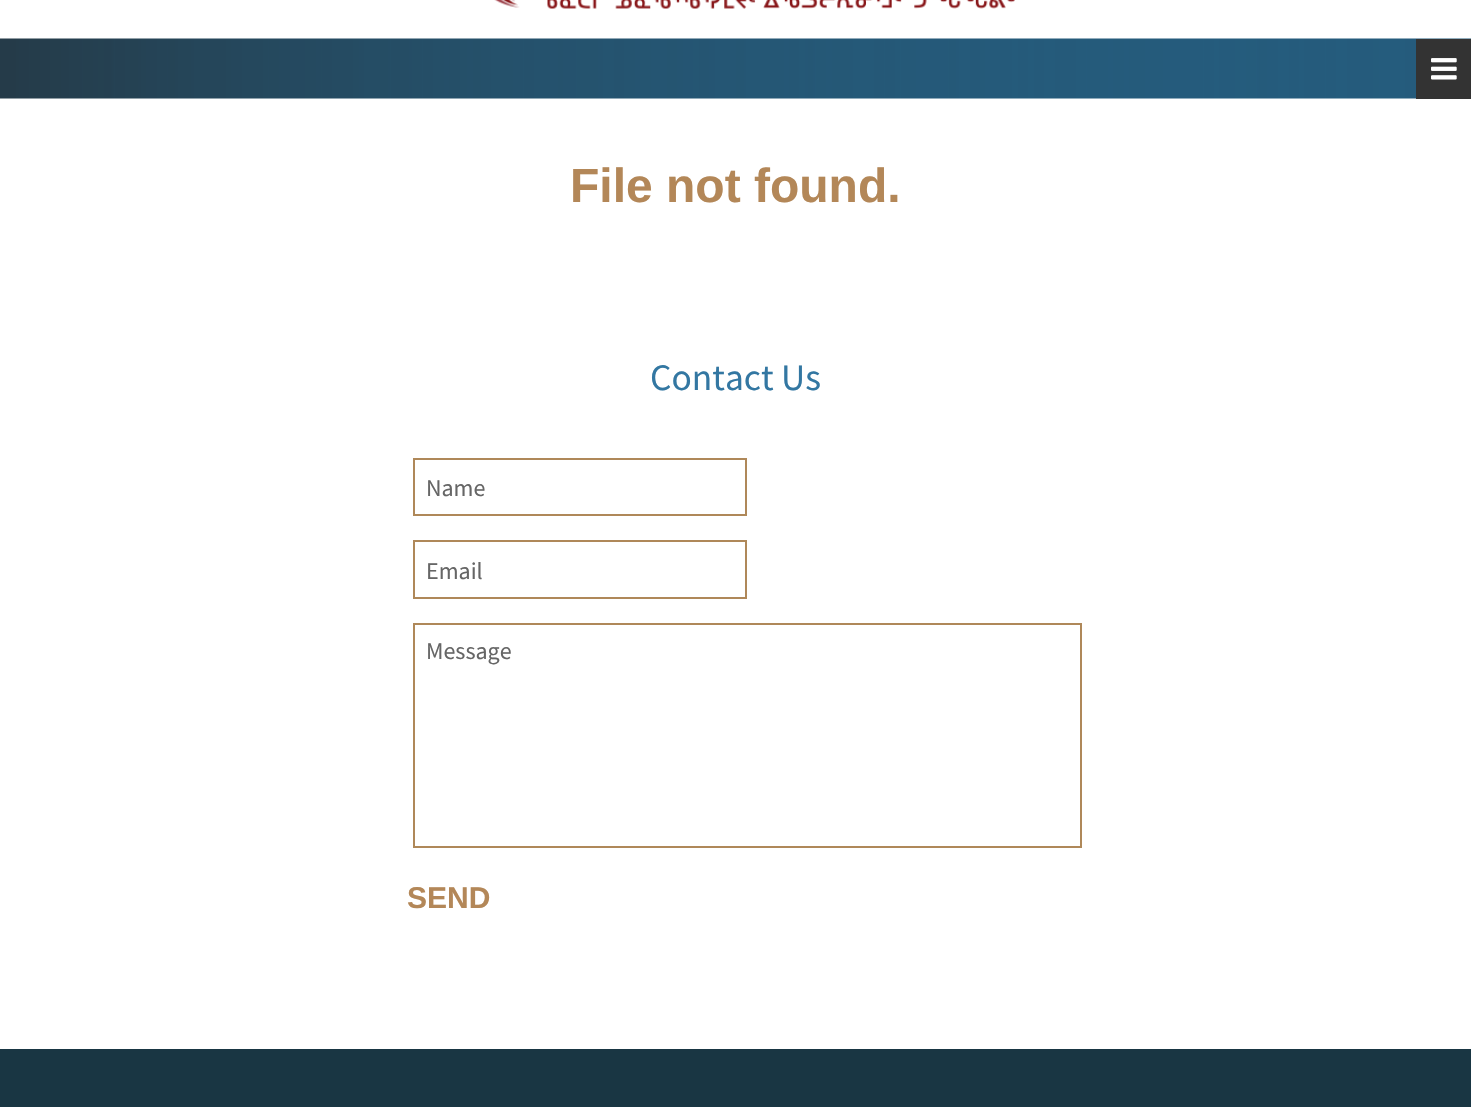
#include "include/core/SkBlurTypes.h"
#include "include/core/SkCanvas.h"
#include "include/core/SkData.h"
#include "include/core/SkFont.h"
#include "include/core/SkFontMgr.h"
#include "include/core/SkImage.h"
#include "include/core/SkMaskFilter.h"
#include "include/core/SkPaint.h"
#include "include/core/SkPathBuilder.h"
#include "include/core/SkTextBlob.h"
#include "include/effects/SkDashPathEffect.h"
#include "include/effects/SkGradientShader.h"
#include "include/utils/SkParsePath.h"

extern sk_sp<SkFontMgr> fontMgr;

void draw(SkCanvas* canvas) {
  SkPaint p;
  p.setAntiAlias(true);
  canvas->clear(SK_ColorWHITE);
  canvas->drawImageRect(SkImages::DeferredFromEncodedData(SkData::MakeFromFileName("images/1.png")), SkRect::MakeLTRB(494, 0, 1015, 9), SkSamplingOptions());
  canvas->drawImageRect(SkImages::DeferredFromEncodedData(SkData::MakeFromFileName("images/2.png")), SkRect::MakeLTRB(0, 38, 1471, 99), SkSamplingOptions());
  p.setColor(SkColorSetRGB(51, 51, 51));
  canvas->drawRect(SkRect::MakeLTRB(1416, 39, 1471, 99), p);
  canvas->drawImageRect(SkImages::DeferredFromEncodedData(SkData::MakeFromFileName("images/3.png")), SkRect::MakeLTRB(1431, 58, 1457, 80), SkSamplingOptions());
  p.setStyle(SkPaint::kStroke_Style);
  p.setStrokeWidth(2);
  p.setColor(SkColorSetRGB(175, 136, 89));
  canvas->drawRect(SkRect::MakeLTRB(414, 459, 746, 515), p);
  canvas->drawRect(SkRect::MakeLTRB(414, 541, 746, 598), p);
  canvas->drawRect(SkRect::MakeLTRB(414, 624, 1081, 847), p);
  p.setStyle(SkPaint::kFill_Style);
  p.setColor(SkColorSetRGB(25, 54, 67));
  canvas->drawRect(SkRect::MakeLTRB(0, 1049, 1471, 1107), p);
  SkFont font1(fontMgr->matchFamilyStyle("Liberation Sans", SkFontStyle::Bold()), 48);
  font1.setSubpixel(true);
  p.setColor(SkColorSetRGB(179, 135, 88));
  canvas->drawString("File not found.", 570, 202, font1, p);
  SkFont font2(fontMgr->matchFamilyStyle("Source Sans Pro", SkFontStyle::Normal()), 37.5f);
  font2.setSubpixel(true);
  p.setColor(SkColorSetRGB(51, 119, 162));
  canvas->drawString("Contact Us", 650, 390, font2, p);
  SkFont font3(fontMgr->matchFamilyStyle("Source Sans Pro", SkFontStyle::Normal()), 24);
  font3.setSubpixel(true);
  p.setColor(SkColorSetRGB(102, 102, 102));
  canvas->drawString("Name", 426, 496, font3, p);
  canvas->drawString("Email", 426, 579, font3, p);
  canvas->drawString("Message", 426, 659, font3, p);
  SkFont font4(fontMgr->matchFamilyStyle("Liberation Sans", SkFontStyle::Bold()), 30);
  font4.setSubpixel(true);
  p.setColor(SkColorSetRGB(179, 135, 88));
  canvas->drawString("SEND", 407, 908, font4, p);
}
